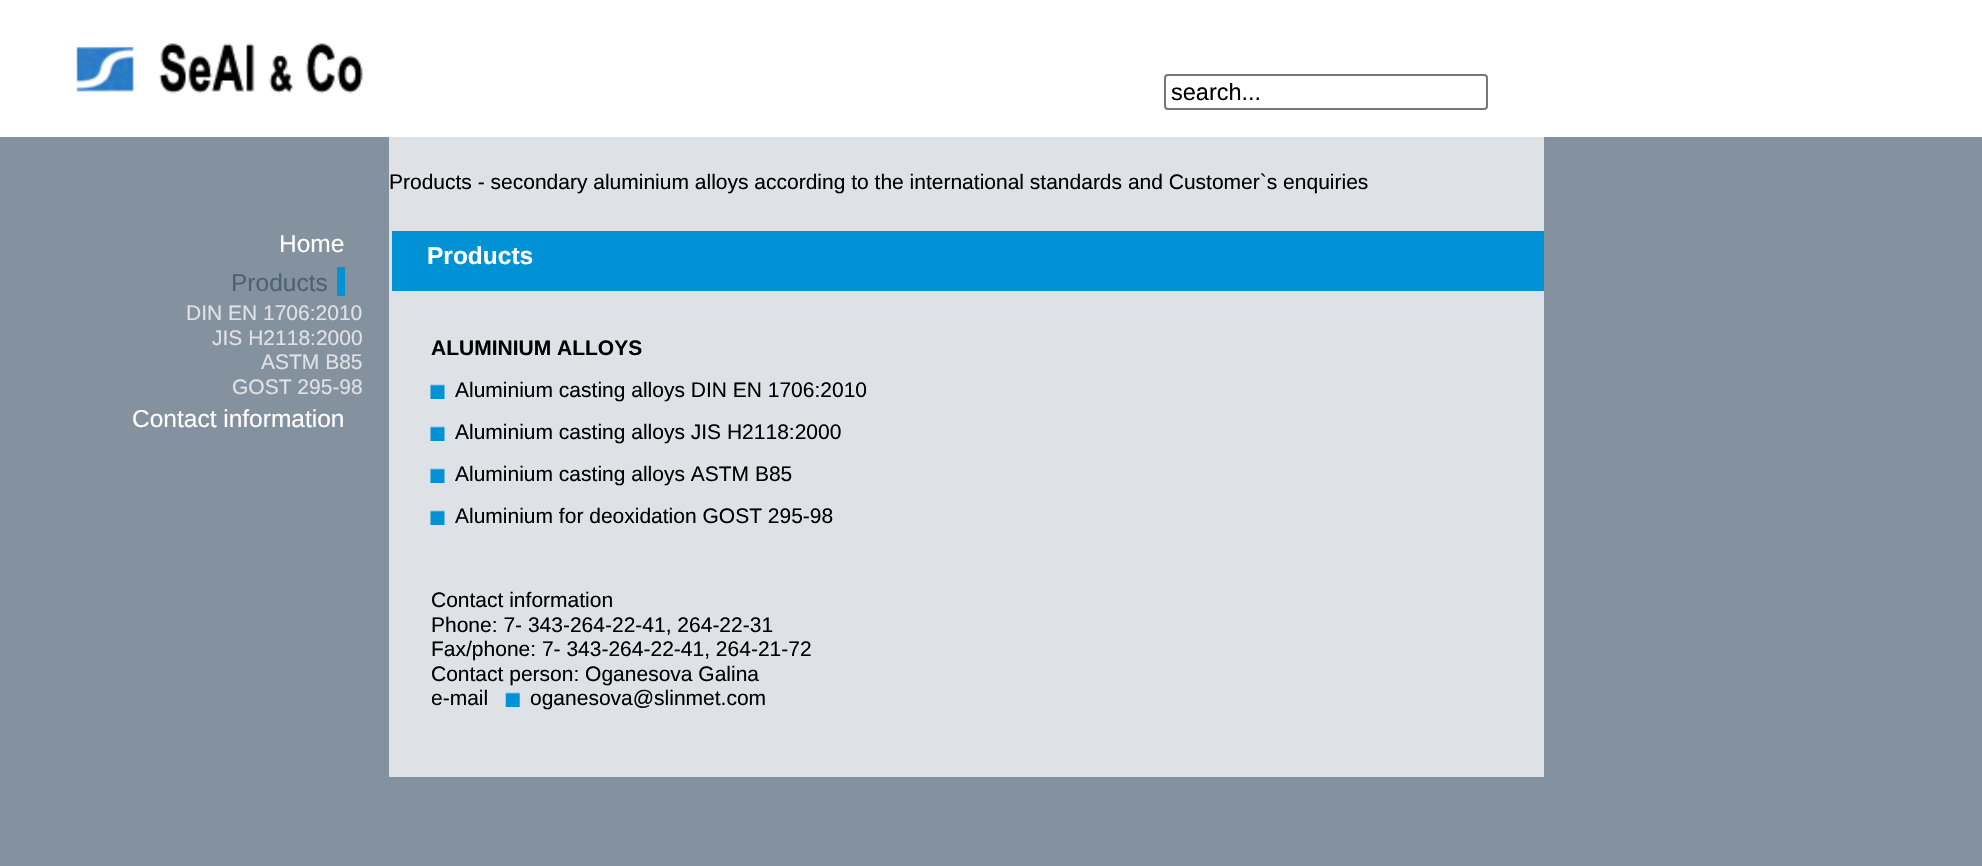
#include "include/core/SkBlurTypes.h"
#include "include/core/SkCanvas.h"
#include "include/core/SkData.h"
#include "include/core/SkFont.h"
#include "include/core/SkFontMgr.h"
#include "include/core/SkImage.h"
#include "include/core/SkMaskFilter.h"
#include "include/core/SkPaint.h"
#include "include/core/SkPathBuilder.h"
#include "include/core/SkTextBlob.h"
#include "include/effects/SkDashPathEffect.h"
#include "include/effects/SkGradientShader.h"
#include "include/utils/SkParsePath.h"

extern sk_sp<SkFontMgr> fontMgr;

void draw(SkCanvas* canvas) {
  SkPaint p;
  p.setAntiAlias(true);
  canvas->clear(SkColorSetRGB(132, 146, 159));
  p.setColor(SK_ColorWHITE);
  canvas->drawRect(SkRect::MakeLTRB(0, 0, 1982, 137), p);
  canvas->drawImageRect(SkImages::DeferredFromEncodedData(SkData::MakeFromFileName("images/1.png")), SkRect::MakeLTRB(76, 43, 363, 94), SkSamplingOptions());
  p.setStyle(SkPaint::kStroke_Style);
  p.setStrokeWidth(2);
  p.setColor(SkColorSetRGB(118, 118, 118));
  canvas->drawRoundRect(SkRect::MakeLTRB(1165, 75, 1487, 109), 3, 3, p);
  p.setStyle(SkPaint::kFill_Style);
  p.setColor(SkColorSetRGB(0, 146, 212));
  canvas->drawRect(SkRect::MakeLTRB(337, 267, 345, 296), p);
  p.setColor(SkColorSetRGB(222, 225, 230));
  canvas->drawRect(SkRect::MakeLTRB(389, 137, 1544, 777), p);
  p.setColor(SkColorSetRGB(0, 146, 212));
  canvas->drawRect(SkRect::MakeLTRB(392, 231, 1544, 291), p);
  canvas->drawImageRect(SkImages::DeferredFromEncodedData(SkData::MakeFromFileName("images/2.png")), SkRect::MakeLTRB(430, 384, 445, 399), SkSamplingOptions());
  canvas->drawImageRect(SkImages::DeferredFromEncodedData(SkData::MakeFromFileName("images/2.png")), SkRect::MakeLTRB(430, 426, 445, 441), SkSamplingOptions());
  canvas->drawImageRect(SkImages::DeferredFromEncodedData(SkData::MakeFromFileName("images/2.png")), SkRect::MakeLTRB(430, 468, 445, 483), SkSamplingOptions());
  canvas->drawImageRect(SkImages::DeferredFromEncodedData(SkData::MakeFromFileName("images/2.png")), SkRect::MakeLTRB(430, 510, 445, 525), SkSamplingOptions());
  canvas->drawImageRect(SkImages::DeferredFromEncodedData(SkData::MakeFromFileName("images/3.png")), SkRect::MakeLTRB(505, 692, 520, 707), SkSamplingOptions());
  SkFont font1(fontMgr->matchFamilyStyle("Liberation Sans", SkFontStyle::Normal()), 23.5f);
  font1.setSubpixel(true);
  p.setColor(SK_ColorBLACK);
  canvas->drawString("search...", 1171, 100, font1, p);
  SkFont font2(fontMgr->matchFamilyStyle("Liberation Sans", SkFontStyle::Normal()), 24.5f);
  font2.setSubpixel(true);
  p.setColor(SK_ColorWHITE);
  canvas->drawString("Home", 279, 252, font2, p);
  p.setColor(SkColorSetRGB(78, 97, 114));
  canvas->drawString("Products", 231, 291, font2, p);
  SkFont font3(fontMgr->matchFamilyStyle("Liberation Sans", SkFontStyle::Normal()), 21);
  font3.setSubpixel(true);
  p.setColor(SkColorSetRGB(222, 225, 230));
  canvas->drawString("DIN EN 1706:2010", 186, 320, font3, p);
  canvas->drawString("JIS H2118:2000", 212, 345, font3, p);
  canvas->drawString("ASTM B85", 261, 369, font3, p);
  canvas->drawString("GOST 295-98", 232, 394, font3, p);
  p.setColor(SK_ColorWHITE);
  canvas->drawString("Contact information", 132, 427, font2, p);
  p.setColor(SK_ColorBLACK);
  canvas->drawString("Products - secondary aluminium alloys according to the international standards and Customer`s enquiries", 389, 189, font3, p);
  SkFont font4(fontMgr->matchFamilyStyle("Liberation Sans", SkFontStyle::Bold()), 24.5f);
  font4.setSubpixel(true);
  p.setColor(SK_ColorWHITE);
  canvas->drawString("Products", 427, 264, font4, p);
  SkFont font5(fontMgr->matchFamilyStyle("Liberation Sans", SkFontStyle::Bold()), 21);
  font5.setSubpixel(true);
  p.setColor(SK_ColorBLACK);
  canvas->drawString("ALUMINIUM ALLOYS", 431, 355, font5, p);
  canvas->drawString("Aluminium casting alloys DIN EN 1706:2010", 455, 397, font3, p);
  canvas->drawString("Aluminium casting alloys JIS H2118:2000", 455, 439, font3, p);
  canvas->drawString("Aluminium casting alloys ASTM B85", 455, 481, font3, p);
  canvas->drawString("Aluminium for deoxidation GOST 295-98", 455, 523, font3, p);
  canvas->drawString("Contact information", 431, 607, font3, p);
  canvas->drawString("Phone: 7- 343-264-22-41, 264-22-31", 431, 632, font3, p);
  canvas->drawString("Fax/phone: 7- 343-264-22-41, 264-21-72", 431, 656, font3, p);
  canvas->drawString("Contact person: Oganesova Galina", 431, 681, font3, p);
  canvas->drawString("e-mail", 431, 705, font3, p);
  canvas->drawString("oganesova@slinmet.com", 530, 705, font3, p);
}
